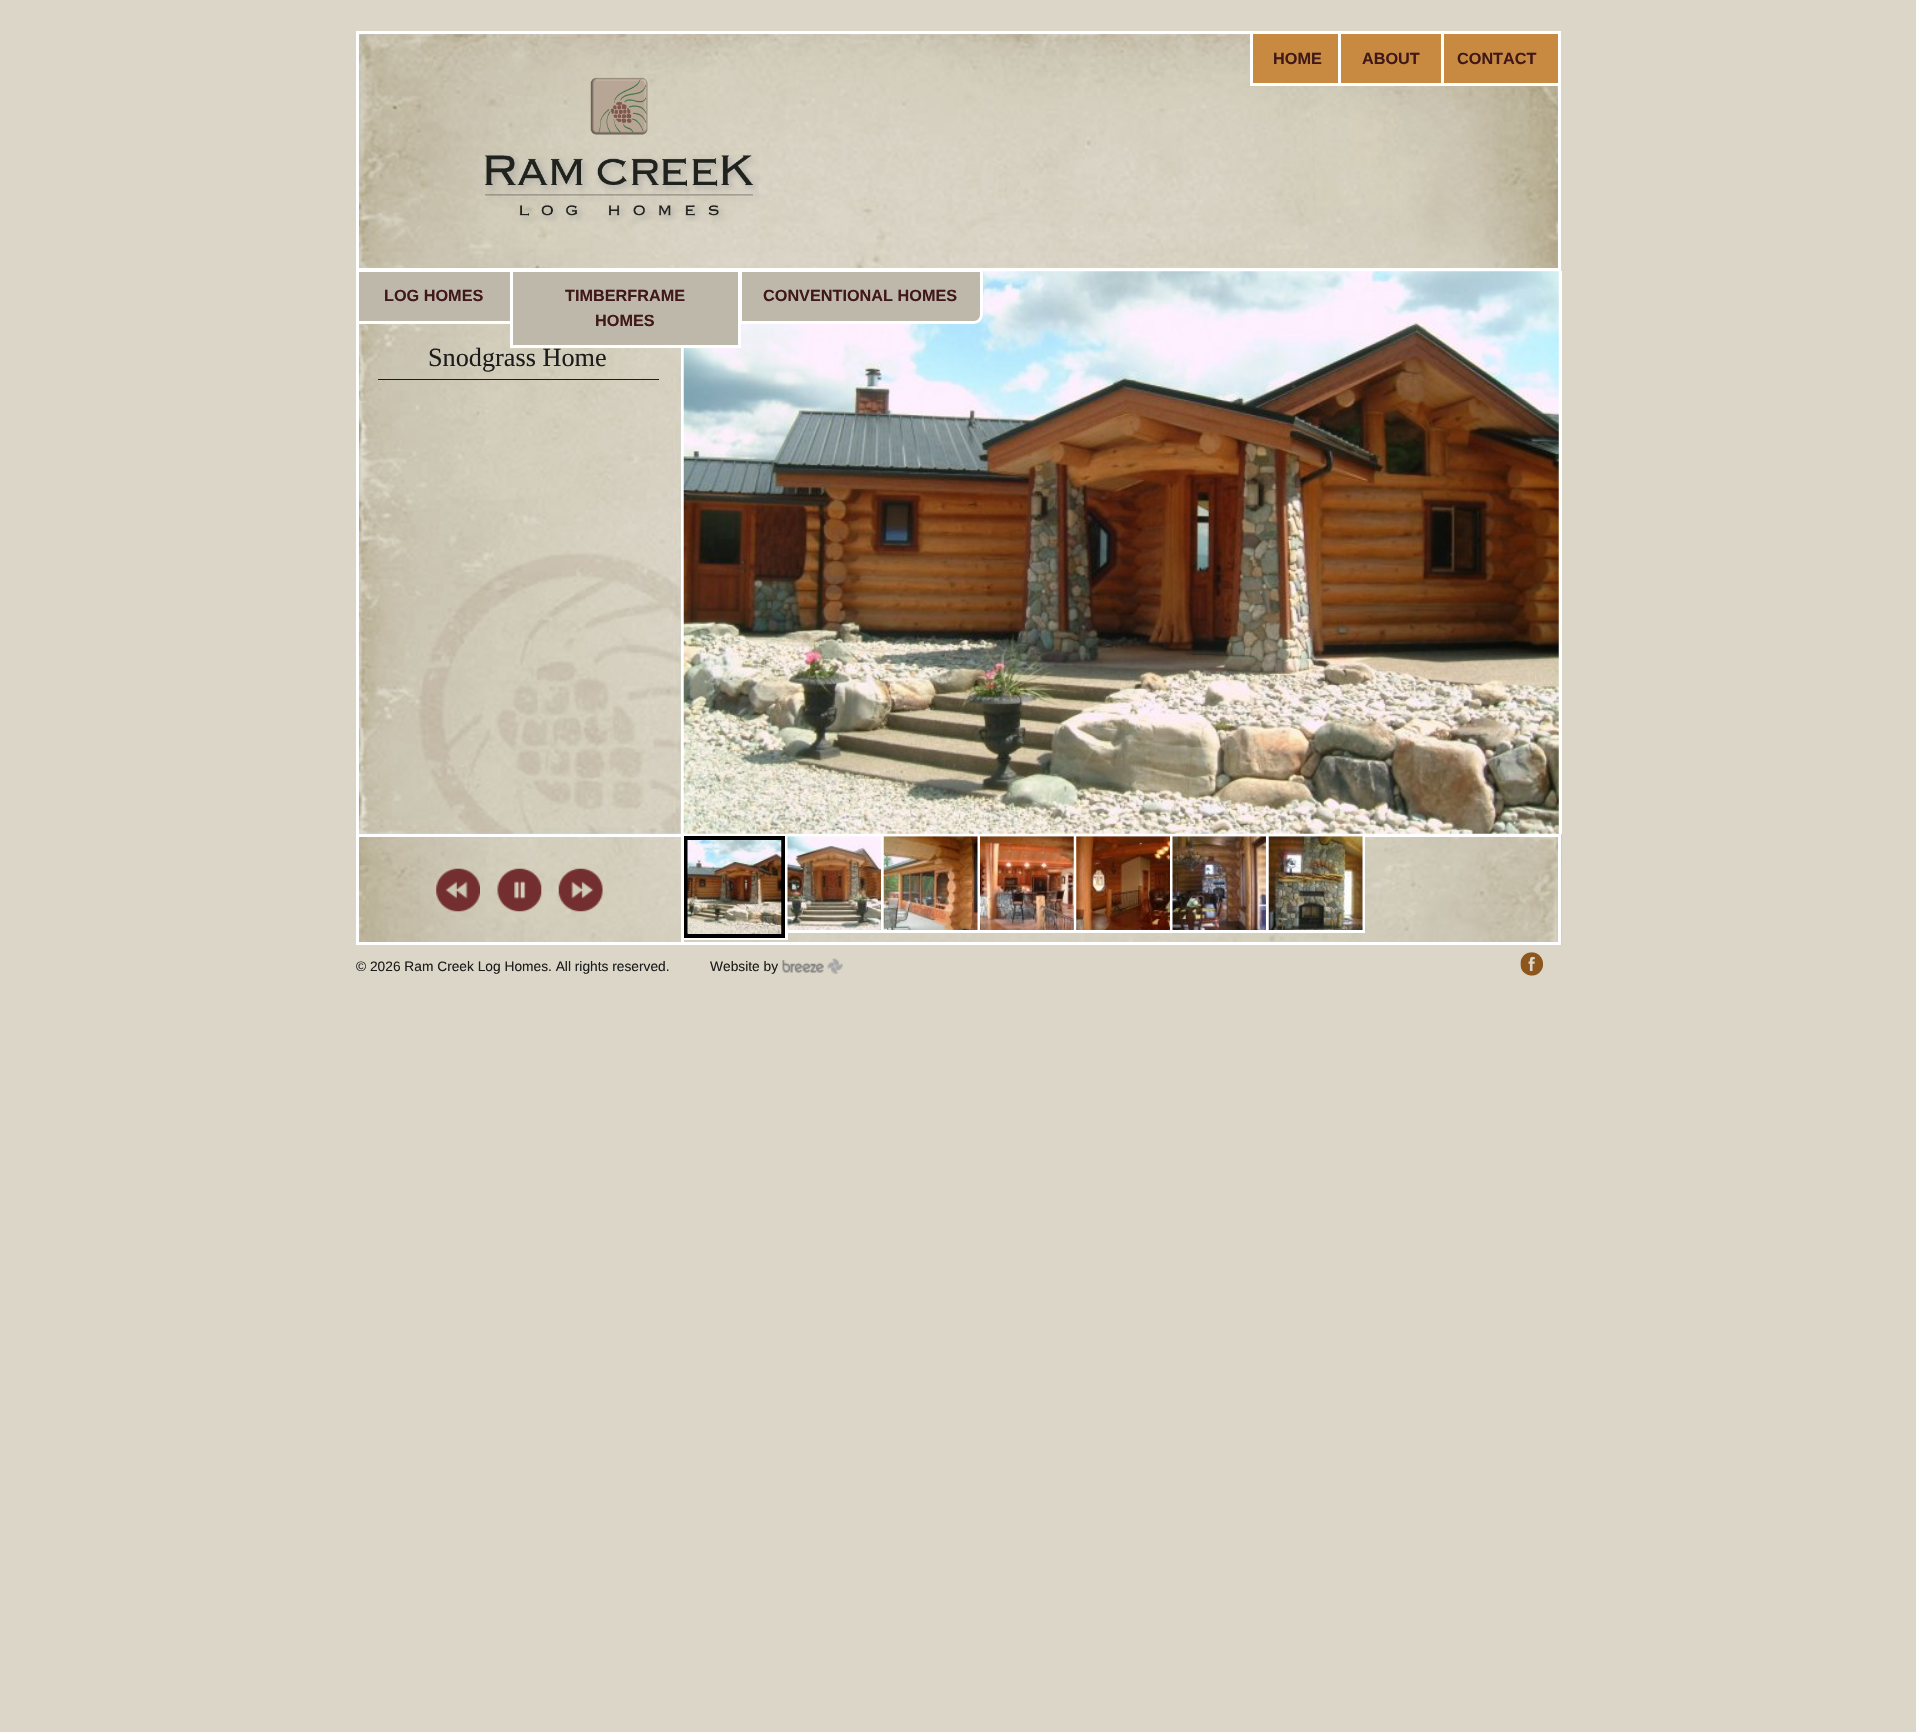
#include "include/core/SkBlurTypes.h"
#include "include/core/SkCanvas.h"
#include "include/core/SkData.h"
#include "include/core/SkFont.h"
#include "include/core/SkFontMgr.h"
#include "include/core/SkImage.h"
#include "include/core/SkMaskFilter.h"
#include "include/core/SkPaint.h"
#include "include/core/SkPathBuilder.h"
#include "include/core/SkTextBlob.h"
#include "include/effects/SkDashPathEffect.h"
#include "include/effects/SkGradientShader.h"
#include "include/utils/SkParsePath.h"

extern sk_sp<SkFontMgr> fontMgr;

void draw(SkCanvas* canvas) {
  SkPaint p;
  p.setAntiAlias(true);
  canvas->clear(SkColorSetRGB(219, 214, 199));
  canvas->drawImageRect(SkImages::DeferredFromEncodedData(SkData::MakeFromFileName("images/1.png")), SkRect::MakeLTRB(359, 34, 1558, 268), SkSamplingOptions());
  p.setStyle(SkPaint::kStroke_Style);
  p.setStrokeWidth(3);
  p.setColor(SK_ColorWHITE);
  canvas->drawRect(SkRect::MakeLTRB(357.5f, 32.5f, 1559.5f, 269.5f), p);
  p.setStyle(SkPaint::kFill_Style);
  p.setColor(SkColorSetRGB(199, 138, 64));
  canvas->drawRect(SkRect::MakeLTRB(1253, 34, 1338, 83), p);
  p.setStyle(SkPaint::kStroke_Style);
  p.setColor(SK_ColorWHITE);
  canvas->drawRect(SkRect::MakeLTRB(1251.5f, 32.5f, 1344.5f, 84.5f), p);
  p.setStyle(SkPaint::kFill_Style);
  p.setColor(SkColorSetRGB(199, 138, 64));
  canvas->drawRect(SkRect::MakeLTRB(1444, 34, 1558, 83), p);
  p.setStyle(SkPaint::kStroke_Style);
  p.setColor(SK_ColorWHITE);
  canvas->drawRect(SkRect::MakeLTRB(1435.5f, 32.5f, 1559.5f, 84.5f), p);
  p.setStyle(SkPaint::kFill_Style);
  p.setColor(SkColorSetRGB(199, 138, 64));
  canvas->drawRect(SkRect::MakeLTRB(1339.5f, 32.5f, 1442.5f, 84.5f), p);
  p.setStyle(SkPaint::kStroke_Style);
  p.setColor(SK_ColorWHITE);
  canvas->drawRect(SkRect::MakeLTRB(1339.5f, 32.5f, 1442.5f, 84.5f), p);
  p.setStyle(SkPaint::kFill_Style);
  p.setColor(SkColorSetRGB(190, 184, 170));
  canvas->drawRect(SkRect::MakeLTRB(357.5f, 270.5f, 511.5f, 322.5f), p);
  p.setStyle(SkPaint::kStroke_Style);
  p.setColor(SK_ColorWHITE);
  canvas->drawRect(SkRect::MakeLTRB(357.5f, 270.5f, 511.5f, 322.5f), p);
  canvas->drawImageRect(SkImages::DeferredFromEncodedData(SkData::MakeFromFileName("images/2.png")), SkRect::MakeLTRB(485, 77, 759, 222), SkSamplingOptions());
  canvas->drawImageRect(SkImages::DeferredFromEncodedData(SkData::MakeFromFileName("images/15.png")), SkRect::MakeLTRB(359, 833, 1562, 945), SkSamplingOptions());
  canvas->drawImageRect(SkImages::DeferredFromEncodedData(SkData::MakeFromFileName("images/3.png")), SkRect::MakeLTRB(359, 324, 681, 834), SkSamplingOptions());
  p.setStyle(SkPaint::kFill_Style);
  canvas->drawRect(SkRect::MakeLTRB(1561, 271, 1562, 834), p);
  canvas->drawRect(SkRect::MakeLTRB(356, 324, 359, 834), p);
  p.setStyle(SkPaint::kStroke_Style);
  canvas->drawRect(SkRect::MakeLTRB(357.5f, 835.5f, 1559.5f, 943.5f), p);
  canvas->drawRect(SkRect::MakeLTRB(682.5f, 270.5f, 1559.5f, 834.5f), p);
  canvas->drawImageRect(SkImages::DeferredFromEncodedData(SkData::MakeFromFileName("images/4.png")), SkRect::MakeLTRB(683, 271, 1559, 834), SkSamplingOptions());
  canvas->drawImageRect(SkImages::DeferredFromEncodedData(SkData::MakeFromFileName("images/5.png")), SkRect::MakeLTRB(436, 868, 480, 912), SkSamplingOptions());
  canvas->drawImageRect(SkImages::DeferredFromEncodedData(SkData::MakeFromFileName("images/6.png")), SkRect::MakeLTRB(497, 868, 542, 912), SkSamplingOptions());
  canvas->drawImageRect(SkImages::DeferredFromEncodedData(SkData::MakeFromFileName("images/7.png")), SkRect::MakeLTRB(558, 868, 603, 912), SkSamplingOptions());
  canvas->drawRect(SkRect::MakeLTRB(682.5f, 835.5f, 1559.5f, 943.5f), p);
  canvas->save();
  canvas->clipRect(SkRect::MakeLTRB(684, 836, 1559, 943));
  canvas->drawRect(SkRect::MakeLTRB(682.5f, 835.5f, 786.5f, 938.5f), p);
  canvas->restore();
  p.setStrokeWidth(4);
  p.setColor(SK_ColorBLACK);
  canvas->drawRect(SkRect::MakeLTRB(686, 838, 783, 936), p);
  canvas->drawImageRect(SkImages::DeferredFromEncodedData(SkData::MakeFromFileName("images/8.png")), SkRect::MakeLTRB(687, 840, 782, 934), SkSamplingOptions());
  canvas->save();
  canvas->clipRect(SkRect::MakeLTRB(684, 836, 1559, 943));
  p.setStrokeWidth(3);
  p.setColor(SK_ColorWHITE);
  canvas->drawRect(SkRect::MakeLTRB(786.5f, 835.5f, 882.5f, 931.5f), p);
  canvas->restore();
  canvas->drawImageRect(SkImages::DeferredFromEncodedData(SkData::MakeFromFileName("images/9.png")), SkRect::MakeLTRB(787, 836, 881, 930), SkSamplingOptions());
  canvas->save();
  canvas->clipRect(SkRect::MakeLTRB(684, 836, 1559, 943));
  canvas->drawRect(SkRect::MakeLTRB(882.5f, 835.5f, 978.5f, 931.5f), p);
  canvas->restore();
  canvas->drawImageRect(SkImages::DeferredFromEncodedData(SkData::MakeFromFileName("images/10.png")), SkRect::MakeLTRB(883, 836, 978, 930), SkSamplingOptions());
  canvas->save();
  canvas->clipRect(SkRect::MakeLTRB(684, 836, 1559, 943));
  canvas->drawRect(SkRect::MakeLTRB(979.5f, 835.5f, 1074.5f, 931.5f), p);
  canvas->restore();
  canvas->drawImageRect(SkImages::DeferredFromEncodedData(SkData::MakeFromFileName("images/11.png")), SkRect::MakeLTRB(980, 836, 1074, 930), SkSamplingOptions());
  canvas->save();
  canvas->clipRect(SkRect::MakeLTRB(684, 836, 1559, 943));
  canvas->drawRect(SkRect::MakeLTRB(1075.5f, 835.5f, 1171.5f, 931.5f), p);
  canvas->restore();
  canvas->drawImageRect(SkImages::DeferredFromEncodedData(SkData::MakeFromFileName("images/12.png")), SkRect::MakeLTRB(1076, 836, 1170, 930), SkSamplingOptions());
  canvas->save();
  canvas->clipRect(SkRect::MakeLTRB(684, 836, 1559, 943));
  canvas->drawRect(SkRect::MakeLTRB(1171.5f, 835.5f, 1267.5f, 931.5f), p);
  canvas->restore();
  canvas->drawImageRect(SkImages::DeferredFromEncodedData(SkData::MakeFromFileName("images/13.png")), SkRect::MakeLTRB(1172, 836, 1266, 930), SkSamplingOptions());
  canvas->save();
  canvas->clipRect(SkRect::MakeLTRB(684, 836, 1559, 943));
  canvas->drawRect(SkRect::MakeLTRB(1267.5f, 835.5f, 1363.5f, 931.5f), p);
  canvas->restore();
  canvas->drawImageRect(SkImages::DeferredFromEncodedData(SkData::MakeFromFileName("images/14.png")), SkRect::MakeLTRB(1268, 836, 1363, 930), SkSamplingOptions());
  p.setStyle(SkPaint::kFill_Style);
  p.setColor(SkColorSetRGB(28, 28, 28));
  canvas->drawRect(SkRect::MakeLTRB(378, 379, 659, 380), p);
  canvas->drawImageRect(SkImages::DeferredFromEncodedData(SkData::MakeFromFileName("images/16.png")), SkRect::MakeLTRB(782, 958, 843, 974), SkSamplingOptions());
  canvas->drawImageRect(SkImages::DeferredFromEncodedData(SkData::MakeFromFileName("images/17.png")), SkRect::MakeLTRB(1520, 952, 1543, 976), SkSamplingOptions());
  SkFont font1(fontMgr->matchFamilyStyle("Liberation Sans", SkFontStyle::Bold()), 16.25f);
  font1.setSubpixel(true);
  p.setColor(SkColorSetRGB(65, 24, 24));
  canvas->drawString("HOME", 1273, 64, font1, p);
  canvas->drawString("ABOUT", 1362, 64, font1, p);
  canvas->drawString("CONTACT", 1457, 64, font1, p);
  canvas->drawString("LOG HOMES", 384, 301, font1, p);
  SkFont font2(fontMgr->matchFamilyStyle("Liberation Serif", SkFontStyle::Normal()), 26.25f);
  font2.setSubpixel(true);
  p.setColor(SkColorSetRGB(28, 28, 28));
  canvas->drawString("Snodgrass Home", 428, 366, font2, p);
  p.setColor(SkColorSetRGB(190, 184, 170));
  canvas->drawRect(SkRect::MakeLTRB(511.5f, 270.5f, 739.5f, 346.5f), p);
  p.setStyle(SkPaint::kStroke_Style);
  p.setColor(SK_ColorWHITE);
  canvas->drawRect(SkRect::MakeLTRB(511.5f, 270.5f, 739.5f, 346.5f), p);
  p.setStyle(SkPaint::kFill_Style);
  p.setColor(SkColorSetRGB(190, 184, 170));
  canvas->drawPath(SkPathBuilder().moveTo(740.5f, 270.5f).lineTo(981.5f, 270.5f).lineTo(981.5f, 315).cubicTo(981.5f, 319, 978, 322.5f, 974, 322.5f).lineTo(740.5f, 322.5f).close().detach(), p);
  p.setStyle(SkPaint::kStroke_Style);
  p.setColor(SK_ColorWHITE);
  canvas->drawPath(SkPathBuilder().moveTo(740.5f, 270.5f).lineTo(981.5f, 270.5f).lineTo(981.5f, 315).cubicTo(981.5f, 319, 978, 322.5f, 974, 322.5f).lineTo(740.5f, 322.5f).close().detach(), p);
  p.setStyle(SkPaint::kFill_Style);
  p.setColor(SkColorSetRGB(65, 24, 24));
  canvas->drawString("CONVENTIONAL HOMES", 763, 301, font1, p);
  canvas->drawString("HOMES", 595, 326, font1, p);
  canvas->drawString("TIMBERFRAME", 565, 301, font1, p);
  SkFont font3(fontMgr->matchFamilyStyle("Liberation Sans", SkFontStyle::Normal()), 13.75f);
  font3.setSubpixel(true);
  p.setColor(SkColorSetRGB(28, 28, 28));
  canvas->drawString("© 2026 Ram Creek Log Homes. All rights reserved.", 356, 971, font3, p);
  canvas->drawString("Website by", 710, 971, font3, p);
}
